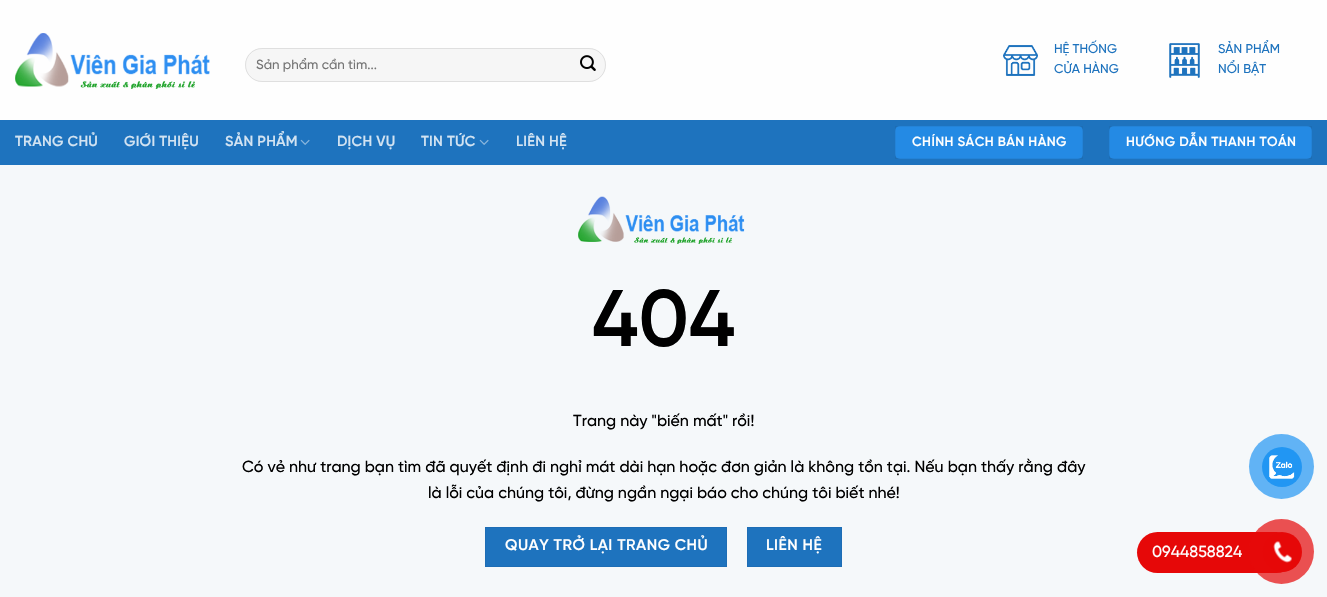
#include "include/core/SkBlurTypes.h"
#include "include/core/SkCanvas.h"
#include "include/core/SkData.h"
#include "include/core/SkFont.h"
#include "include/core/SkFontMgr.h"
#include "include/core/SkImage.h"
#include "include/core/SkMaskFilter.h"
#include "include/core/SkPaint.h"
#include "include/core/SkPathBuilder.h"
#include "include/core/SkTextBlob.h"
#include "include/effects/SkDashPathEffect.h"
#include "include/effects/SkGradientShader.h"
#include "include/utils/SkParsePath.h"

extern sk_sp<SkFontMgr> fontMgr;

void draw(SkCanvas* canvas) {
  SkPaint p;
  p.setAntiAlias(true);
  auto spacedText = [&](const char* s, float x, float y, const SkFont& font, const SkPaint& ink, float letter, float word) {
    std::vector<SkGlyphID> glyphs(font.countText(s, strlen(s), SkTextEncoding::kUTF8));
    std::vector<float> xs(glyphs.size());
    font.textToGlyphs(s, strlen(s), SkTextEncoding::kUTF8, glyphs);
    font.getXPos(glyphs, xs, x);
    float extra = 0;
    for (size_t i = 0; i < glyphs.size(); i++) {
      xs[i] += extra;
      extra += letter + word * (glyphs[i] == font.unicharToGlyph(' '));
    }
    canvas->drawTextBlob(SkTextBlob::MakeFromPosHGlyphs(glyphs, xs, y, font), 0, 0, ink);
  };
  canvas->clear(SkColorSetRGB(245, 248, 250));
  p.setColor(SkColorSetRGB(254, 254, 254));
  canvas->drawRect(SkRect::MakeLTRB(0, 0, 1327, 120), p);
  canvas->drawImageRect(SkImages::DeferredFromEncodedData(SkData::MakeFromFileName("images/1.png")), SkRect::MakeLTRB(15, 33, 210, 89), SkSamplingOptions());
  p.setColor(SkColorSetRGB(246, 246, 246));
  canvas->drawRoundRect(SkRect::MakeLTRB(245, 48, 606, 82), 17, 17, p);
  p.setStyle(SkPaint::kStroke_Style);
  p.setStrokeWidth(1);
  p.setColor(SkColorSetARGB(23, 0, 0, 0));
  canvas->drawRoundRect(SkRect::MakeLTRB(245.5f, 48.5f, 605.5f, 81.5f), 16.5f, 16.5f, p);
  canvas->drawImageRect(SkImages::DeferredFromEncodedData(SkData::MakeFromFileName("images/2.png")), SkRect::MakeLTRB(580, 55, 596, 71), SkSamplingOptions());
  canvas->drawImageRect(SkImages::DeferredFromEncodedData(SkData::MakeFromFileName("images/3.png")), SkRect::MakeLTRB(1003, 45, 1038, 76), SkSamplingOptions());
  canvas->drawImageRect(SkImages::DeferredFromEncodedData(SkData::MakeFromFileName("images/4.png")), SkRect::MakeLTRB(1169, 43, 1200, 78), SkSamplingOptions());
  p.setStyle(SkPaint::kFill_Style);
  p.setColor(SkColorSetRGB(30, 115, 190));
  canvas->drawRect(SkRect::MakeLTRB(0, 120, 1327, 165), p);
  canvas->drawImageRect(SkImages::DeferredFromEncodedData(SkData::MakeFromFileName("images/5.png")), SkRect::MakeLTRB(300, 139, 310, 145), SkSamplingOptions());
  canvas->drawImageRect(SkImages::DeferredFromEncodedData(SkData::MakeFromFileName("images/5.png")), SkRect::MakeLTRB(479, 139, 489, 145), SkSamplingOptions());
  p.setColor(SkColorSetRGB(36, 138, 228));
  canvas->drawRoundRect(SkRect::MakeLTRB(895, 126, 1083, 159), 5, 5, p);
  p.setStyle(SkPaint::kStroke_Style);
  p.setColor(SkColorSetARGB(13, 0, 0, 0));
  canvas->drawRect(SkRect::MakeLTRB(895.5f, 126.5f, 1082.5f, 158.5f), p);
  p.setStyle(SkPaint::kFill_Style);
  p.setColor(SkColorSetRGB(36, 138, 228));
  canvas->drawRoundRect(SkRect::MakeLTRB(1109, 126, 1312, 159), 5, 5, p);
  p.setStyle(SkPaint::kStroke_Style);
  p.setColor(SkColorSetARGB(13, 0, 0, 0));
  canvas->drawRect(SkRect::MakeLTRB(1109.5f, 126.5f, 1311.5f, 158.5f), p);
  canvas->drawImageRect(SkImages::DeferredFromEncodedData(SkData::MakeFromFileName("images/6.png")), SkRect::MakeLTRB(578, 196, 745, 244), SkSamplingOptions());
  p.setStyle(SkPaint::kFill_Style);
  p.setColor(SkColorSetRGB(30, 115, 190));
  canvas->drawRect(SkRect::MakeLTRB(485.5f, 527.5f, 726.5f, 566.5f), p);
  p.setStyle(SkPaint::kStroke_Style);
  p.setColor(SkColorSetRGB(29, 109, 181));
  canvas->drawRect(SkRect::MakeLTRB(485.5f, 527.5f, 726.5f, 566.5f), p);
  p.setStyle(SkPaint::kFill_Style);
  p.setColor(SkColorSetRGB(30, 115, 190));
  canvas->drawRect(SkRect::MakeLTRB(747.5f, 527.5f, 841.5f, 566.5f), p);
  p.setStyle(SkPaint::kStroke_Style);
  p.setColor(SkColorSetRGB(29, 109, 181));
  canvas->drawRect(SkRect::MakeLTRB(747.5f, 527.5f, 841.5f, 566.5f), p);
  p.setStyle(SkPaint::kFill_Style);
  p.setColor(SkColorSetRGB(97, 179, 245));
  canvas->drawCircle(1281.5f, 466.5f, 32.5f, p);
  p.setColor(SkColorSetRGB(33, 150, 243));
  canvas->drawCircle(1282, 467, 20, p);
  canvas->drawImageRect(SkImages::DeferredFromEncodedData(SkData::MakeFromFileName("images/7.png")), SkRect::MakeLTRB(1269, 455, 1295, 479), SkSamplingOptions());
  p.setColor(SkColorSetRGB(230, 8, 8));
  canvas->drawRoundRect(SkRect::MakeLTRB(1137, 532, 1297, 573), 20.5f, 20.5f, p);
  p.setColor(SkColorSetARGB(179, 230, 8, 8));
  canvas->drawCircle(1281.5f, 551.5f, 32.5f, p);
  p.setColor(SkColorSetRGB(230, 8, 8));
  canvas->drawCircle(1282, 552, 20, p);
  canvas->drawImageRect(SkImages::DeferredFromEncodedData(SkData::MakeFromFileName("images/8.png")), SkRect::MakeLTRB(1273, 541, 1292, 563), SkSamplingOptions());
  SkFont font1(fontMgr->matchFamilyStyle("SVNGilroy", SkFontStyle(500, SkFontStyle::kNormal_Width, SkFontStyle::kUpright_Slant)), 13.25f);
  font1.setSubpixel(true);
  p.setColor(SkColorSetRGB(117, 117, 117));
  canvas->drawString("Sản phẩm cần tìm...", 256, 69, font1, p);
  SkFont font2(fontMgr->matchFamilyStyle("SVNGilroy", SkFontStyle(500, SkFontStyle::kNormal_Width, SkFontStyle::kUpright_Slant)), 12.75f);
  font2.setSubpixel(true);
  p.setColor(SkColorSetRGB(30, 115, 190));
  canvas->drawString("HỆ THỐNG", 1054, 53, font2, p);
  canvas->drawString("CỬA HÀNG", 1054, 73, font2, p);
  canvas->drawString("SẢN PHẨM", 1218, 53, font2, p);
  canvas->drawString("NỔI BẬT", 1218, 73, font2, p);
  SkFont font3(fontMgr->matchFamilyStyle("SVNGilroy", SkFontStyle(600, SkFontStyle::kNormal_Width, SkFontStyle::kUpright_Slant)), 14.5f);
  font3.setSubpixel(true);
  p.setColor(SkColorSetRGB(210, 227, 242));
  spacedText("TRANG CHỦ", 15, 146, font3, p, 0.25f, 0);
  spacedText("GIỚI THIỆU", 124, 146, font3, p, 0.25f, 0);
  spacedText("SẢN PHẨM", 225, 146, font3, p, 0.25f, 0);
  spacedText("DỊCH VỤ", 337, 146, font3, p, 0.25f, 0);
  spacedText("TIN TỨC", 421, 146, font3, p, 0.25f, 0);
  spacedText("LIÊN HỆ", 516, 146, font3, p, 0.25f, 0);
  SkFont font4(fontMgr->matchFamilyStyle("SVNGilroy", SkFontStyle(600, SkFontStyle::kNormal_Width, SkFontStyle::kUpright_Slant)), 13.25f);
  font4.setSubpixel(true);
  p.setColor(SK_ColorWHITE);
  spacedText("CHÍNH SÁCH BÁN HÀNG", 912, 146, font4, p, 0.4f, 0);
  spacedText("HƯỚNG DẪN THANH TOÁN", 1126, 146, font4, p, 0.4f, 0);
  SkFont font5(fontMgr->matchFamilyStyle("SVNGilroy", SkFontStyle(600, SkFontStyle::kNormal_Width, SkFontStyle::kUpright_Slant)), 80);
  font5.setSubpixel(true);
  p.setColor(SK_ColorBLACK);
  canvas->drawString("404", 592, 346, font5, p);
  SkFont font6(fontMgr->matchFamilyStyle("SVNGilroy", SkFontStyle(500, SkFontStyle::kNormal_Width, SkFontStyle::kUpright_Slant)), 16);
  font6.setSubpixel(true);
  canvas->drawString("Trang này \"biến mất\" rồi!", 573, 426, font6, p);
  canvas->drawString("Có vẻ như trang bạn tìm đã quyết định đi nghỉ mát dài hạn hoặc đơn giản là không tồn tại. Nếu bạn thấy rằng đây", 242, 472, font6, p);
  canvas->drawString("là lỗi của chúng tôi, đừng ngần ngại báo cho chúng tôi biết nhé!", 428, 498, font6, p);
  SkFont font7(fontMgr->matchFamilyStyle("SVNGilroy", SkFontStyle(600, SkFontStyle::kNormal_Width, SkFontStyle::kUpright_Slant)), 15.5f);
  font7.setSubpixel(true);
  p.setColor(SK_ColorWHITE);
  spacedText("QUAY TRỞ LẠI TRANG CHỦ", 505, 550, font7, p, 0.5f, 0);
  spacedText("LIÊN HỆ", 766, 550, font7, p, 0.5f, 0);
  canvas->drawString("0944858824", 1152, 557, font6, p);
}
